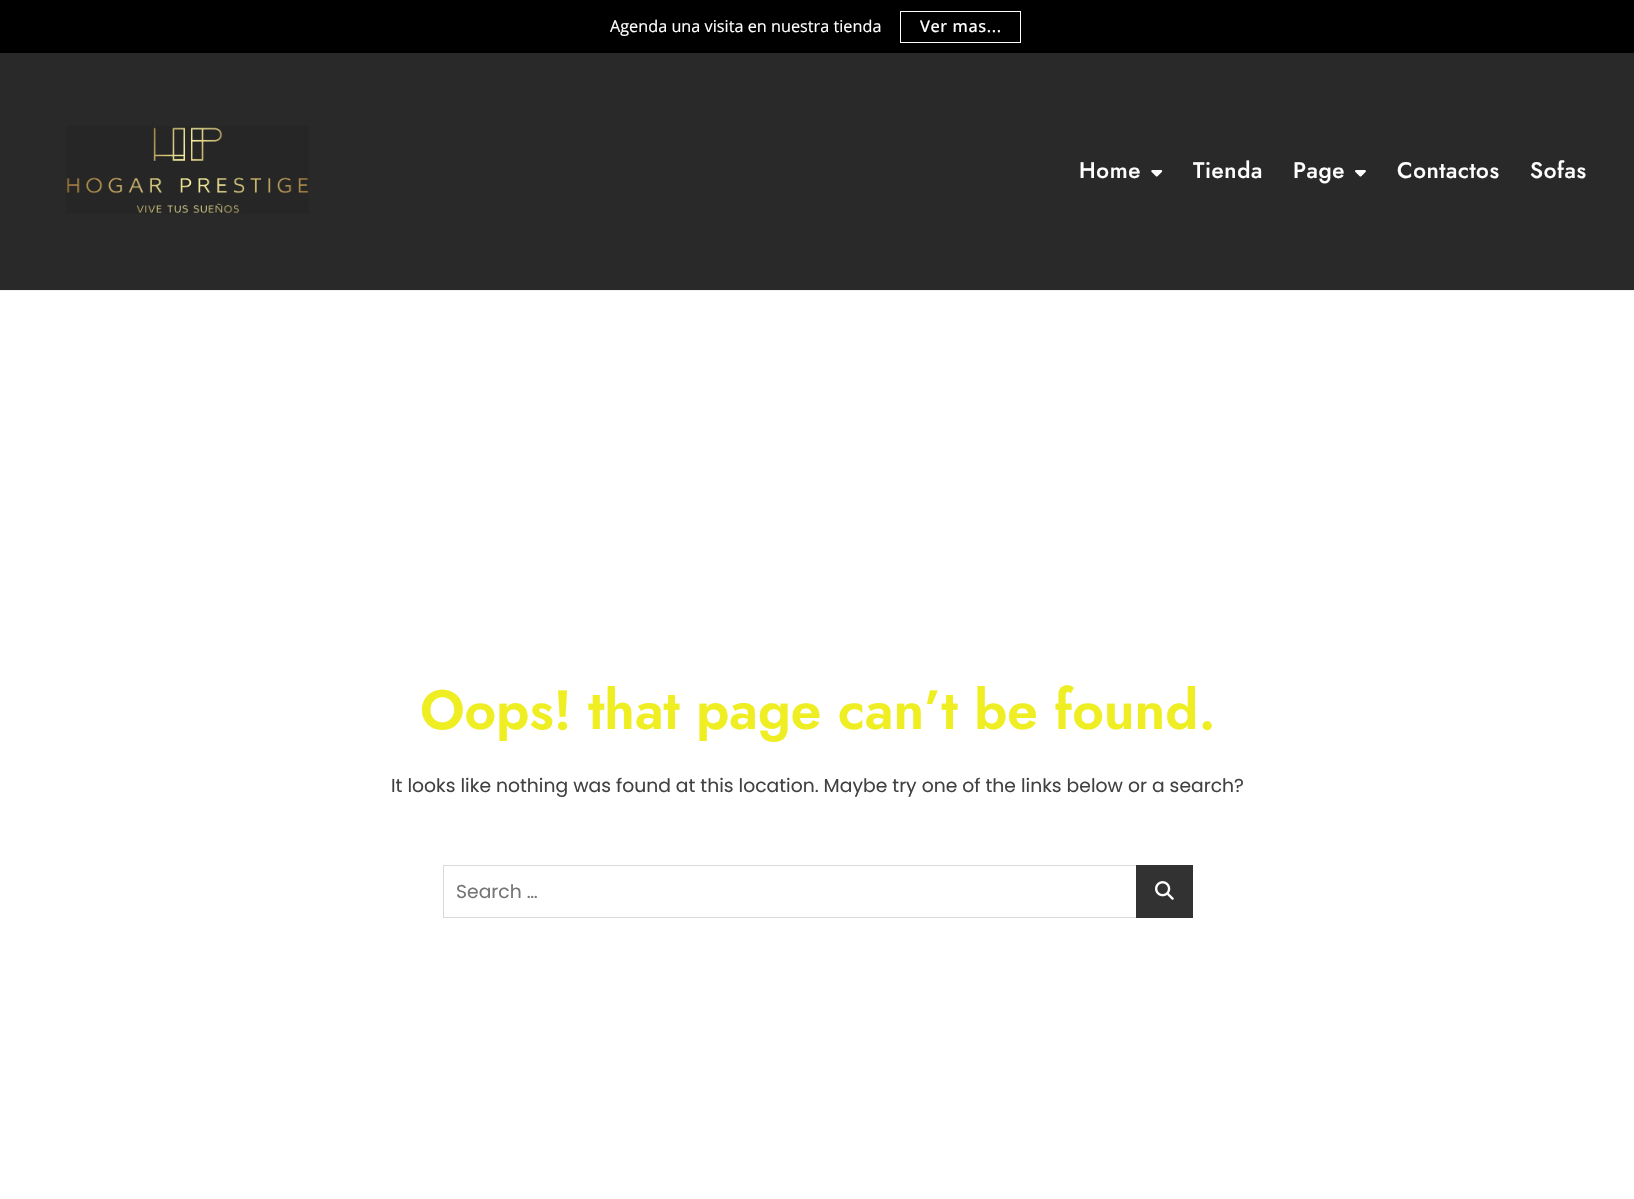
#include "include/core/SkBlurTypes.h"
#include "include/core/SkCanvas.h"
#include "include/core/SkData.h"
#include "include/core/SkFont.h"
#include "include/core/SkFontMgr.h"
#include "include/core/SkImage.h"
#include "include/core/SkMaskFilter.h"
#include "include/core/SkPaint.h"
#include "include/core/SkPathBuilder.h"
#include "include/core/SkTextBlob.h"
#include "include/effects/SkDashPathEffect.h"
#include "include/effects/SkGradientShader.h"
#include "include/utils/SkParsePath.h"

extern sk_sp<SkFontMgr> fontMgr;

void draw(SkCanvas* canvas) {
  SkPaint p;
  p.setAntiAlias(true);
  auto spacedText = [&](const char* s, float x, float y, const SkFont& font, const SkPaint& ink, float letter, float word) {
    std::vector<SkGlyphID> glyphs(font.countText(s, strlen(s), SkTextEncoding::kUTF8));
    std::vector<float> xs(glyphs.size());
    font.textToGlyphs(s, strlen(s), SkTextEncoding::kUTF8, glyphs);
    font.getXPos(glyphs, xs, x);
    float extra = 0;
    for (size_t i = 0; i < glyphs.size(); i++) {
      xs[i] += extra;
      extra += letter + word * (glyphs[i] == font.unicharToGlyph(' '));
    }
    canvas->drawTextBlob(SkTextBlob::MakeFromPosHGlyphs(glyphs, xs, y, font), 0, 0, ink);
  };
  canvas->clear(SK_ColorWHITE);
  p.setColor(SK_ColorBLACK);
  canvas->drawRect(SkRect::MakeLTRB(0, 0, 1634, 53), p);
  p.setStyle(SkPaint::kStroke_Style);
  p.setStrokeWidth(1);
  p.setColor(SK_ColorWHITE);
  canvas->drawRect(SkRect::MakeLTRB(900.5f, 11.5f, 1020.5f, 42.5f), p);
  p.setStyle(SkPaint::kFill_Style);
  p.setColor(SkColorSetRGB(41, 41, 41));
  canvas->drawRect(SkRect::MakeLTRB(0, 53, 1634, 290), p);
  canvas->drawImageRect(SkImages::DeferredFromEncodedData(SkData::MakeFromFileName("images/1.png")), SkRect::MakeLTRB(66, 126, 309, 214), SkSamplingOptions());
  canvas->drawImageRect(SkImages::DeferredFromEncodedData(SkData::MakeFromFileName("images/2.png")), SkRect::MakeLTRB(1151, 170, 1163, 177), SkSamplingOptions());
  canvas->drawImageRect(SkImages::DeferredFromEncodedData(SkData::MakeFromFileName("images/3.png")), SkRect::MakeLTRB(1355, 170, 1366, 177), SkSamplingOptions());
  p.setColor(SkColorSetRGB(242, 242, 242));
  canvas->drawRect(SkRect::MakeLTRB(0, 290, 1634, 291), p);
  p.setStyle(SkPaint::kStroke_Style);
  p.setColor(SkColorSetRGB(217, 217, 217));
  canvas->drawRect(SkRect::MakeLTRB(443.5f, 865.5f, 1192.5f, 917.5f), p);
  p.setStyle(SkPaint::kFill_Style);
  p.setColor(SkColorSetRGB(50, 50, 50));
  canvas->drawRect(SkRect::MakeLTRB(1136, 865, 1193, 918), p);
  canvas->drawImageRect(SkImages::DeferredFromEncodedData(SkData::MakeFromFileName("images/4.png")), SkRect::MakeLTRB(1155, 881, 1174, 900), SkSamplingOptions());
  SkFont font1(fontMgr->matchFamilyStyle("Open Sans", SkFontStyle::Normal()), 16.25f);
  font1.setSubpixel(true);
  p.setColor(SK_ColorWHITE);
  canvas->drawString("Agenda una visita en nuestra tienda", 610, 32, font1, p);
  SkFont font2(fontMgr->matchFamilyStyle("Open Sans", SkFontStyle(500, SkFontStyle::kNormal_Width, SkFontStyle::kUpright_Slant)), 16.25f);
  font2.setSubpixel(true);
  spacedText("Ver mas...", 920, 32, font2, p, 0.6f, 0);
  SkFont font3(fontMgr->matchFamilyStyle("Jost", SkFontStyle(500, SkFontStyle::kNormal_Width, SkFontStyle::kUpright_Slant)), 22.5f);
  font3.setSubpixel(true);
  spacedText("Home", 1079, 178, font3, p, 0.6f, 0);
  spacedText("Tienda", 1193, 178, font3, p, 0.6f, 0);
  spacedText("Page", 1293, 178, font3, p, 0.6f, 0);
  spacedText("Contactos", 1397, 178, font3, p, 0.6f, 0);
  spacedText("Sofas", 1530, 178, font3, p, 0.6f, 0);
  SkFont font4(fontMgr->matchFamilyStyle("Jost", SkFontStyle(600, SkFontStyle::kNormal_Width, SkFontStyle::kUpright_Slant)), 55);
  font4.setSubpixel(true);
  p.setColor(SkColorSetRGB(238, 238, 34));
  canvas->drawString("Oops! that page can’t be found.", 420, 729, font4, p);
  SkFont font5(fontMgr->matchFamilyStyle("Poppins", SkFontStyle::Normal()), 18.75f);
  font5.setSubpixel(true);
  p.setColor(SkColorSetRGB(65, 65, 65));
  canvas->drawString("It looks like nothing was found at this location. Maybe try one of the links below or a search?", 391, 792, font5, p);
  p.setColor(SkColorSetRGB(117, 117, 117));
  canvas->drawString("Search …", 456, 898, font5, p);
}
